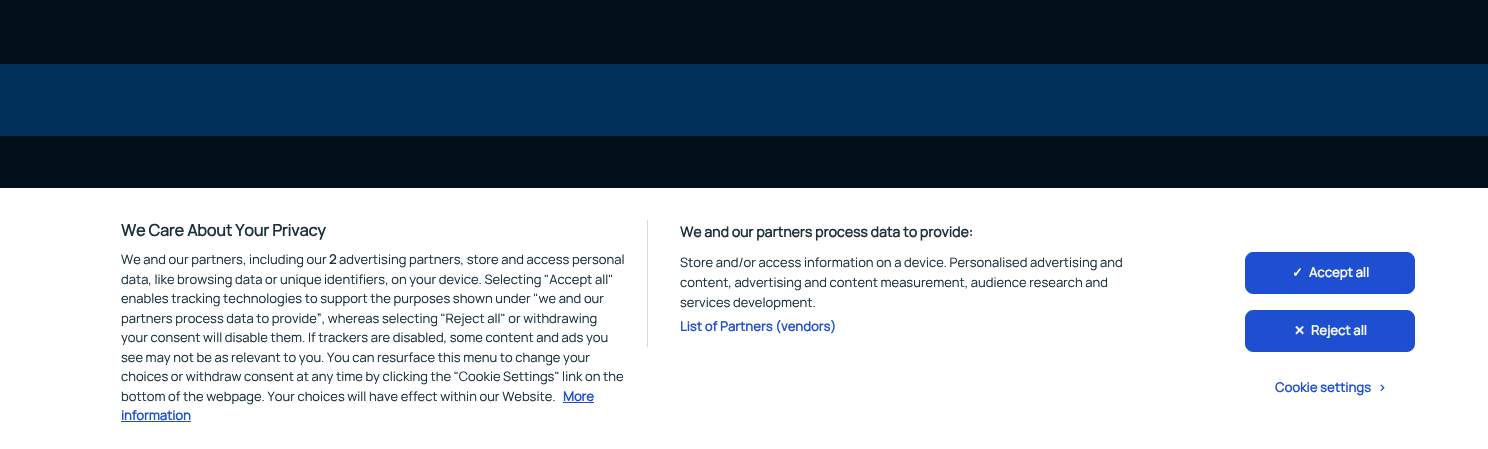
#include "include/core/SkBlurTypes.h"
#include "include/core/SkCanvas.h"
#include "include/core/SkData.h"
#include "include/core/SkFont.h"
#include "include/core/SkFontMgr.h"
#include "include/core/SkImage.h"
#include "include/core/SkMaskFilter.h"
#include "include/core/SkPaint.h"
#include "include/core/SkPathBuilder.h"
#include "include/core/SkTextBlob.h"
#include "include/effects/SkDashPathEffect.h"
#include "include/effects/SkGradientShader.h"
#include "include/utils/SkParsePath.h"

extern sk_sp<SkFontMgr> fontMgr;

void draw(SkCanvas* canvas) {
  SkPaint p;
  p.setAntiAlias(true);
  auto spacedText = [&](const char* s, float x, float y, const SkFont& font, const SkPaint& ink, float letter, float word) {
    std::vector<SkGlyphID> glyphs(font.countText(s, strlen(s), SkTextEncoding::kUTF8));
    std::vector<float> xs(glyphs.size());
    font.textToGlyphs(s, strlen(s), SkTextEncoding::kUTF8, glyphs);
    font.getXPos(glyphs, xs, x);
    float extra = 0;
    for (size_t i = 0; i < glyphs.size(); i++) {
      xs[i] += extra;
      extra += letter + word * (glyphs[i] == font.unicharToGlyph(' '));
    }
    canvas->drawTextBlob(SkTextBlob::MakeFromPosHGlyphs(glyphs, xs, y, font), 0, 0, ink);
  };
  canvas->clear(SkColorSetRGB(2, 16, 28));
  p.setColor(SkColorSetRGB(0, 47, 90));
  canvas->drawRect(SkRect::MakeLTRB(0, 64, 1488, 136), p);
  p.setColor(SK_ColorWHITE);
  canvas->drawRect(SkRect::MakeLTRB(0, 188, 1488, 449), p);
  p.setColor(SkColorSetRGB(216, 216, 216));
  canvas->drawRect(SkRect::MakeLTRB(647, 220, 648, 347), p);
  p.setColor(SkColorSetRGB(30, 79, 208));
  canvas->drawRect(SkRect::MakeLTRB(563, 402, 594, 403), p);
  canvas->drawRect(SkRect::MakeLTRB(121, 421, 191, 422), p);
  canvas->drawRoundRect(SkRect::MakeLTRB(1245.5f, 252.5f, 1414.5f, 293.5f), 7.5f, 7.5f, p);
  p.setStyle(SkPaint::kStroke_Style);
  p.setStrokeWidth(1);
  canvas->drawRoundRect(SkRect::MakeLTRB(1245.5f, 252.5f, 1414.5f, 293.5f), 7.5f, 7.5f, p);
  p.setStyle(SkPaint::kFill_Style);
  canvas->drawRoundRect(SkRect::MakeLTRB(1245.5f, 310.5f, 1414.5f, 351.5f), 7.5f, 7.5f, p);
  p.setStyle(SkPaint::kStroke_Style);
  canvas->drawRoundRect(SkRect::MakeLTRB(1245.5f, 310.5f, 1414.5f, 351.5f), 7.5f, 7.5f, p);
  SkFont font1(fontMgr->matchFamilyStyle("Manrope", SkFontStyle::Bold()), 16);
  font1.setSubpixel(true);
  p.setStyle(SkPaint::kFill_Style);
  p.setColor(SkColorSetRGB(26, 49, 60));
  canvas->drawString("We Care About Your Privacy", 121, 236, font1, p);
  SkFont font2(fontMgr->matchFamilyStyle("Manrope", SkFontStyle::Bold()), 14.1f);
  font2.setSubpixel(true);
  canvas->drawString("We and our partners process data to provide:", 680, 237, font2, p);
  SkFont font3(fontMgr->matchFamilyStyle("Manrope", SkFontStyle::Normal()), 13);
  font3.setSubpixel(true);
  canvas->drawString("Store and/or access information on a device. Personalised advertising and", 680, 267, font3, p);
  canvas->drawString("content, advertising and content measurement, audience research and", 680, 287, font3, p);
  canvas->drawString("services development.", 680, 307, font3, p);
  SkFont font4(fontMgr->matchFamilyStyle("Manrope", SkFontStyle::Bold()), 13);
  font4.setSubpixel(true);
  p.setColor(SkColorSetRGB(30, 79, 208));
  spacedText("List of Partners (vendors)", 680, 331, font4, p, 0.1f, 0);
  p.setColor(SkColorSetRGB(26, 49, 60));
  canvas->drawString("We and our partners, including our", 121, 264, font3, p);
  canvas->drawString("2", 329, 264, font4, p);
  canvas->drawString("advertising partners, store and access personal", 339, 264, font3, p);
  canvas->drawString("data, like browsing data or unique identifiers, on your device. Selecting \"Accept all\"", 121, 284, font3, p);
  canvas->drawString("enables tracking technologies to support the purposes shown under \"we and our", 121, 303, font3, p);
  canvas->drawString("partners process data to provide”, whereas selecting \"Reject all\" or withdrawing", 121, 323, font3, p);
  canvas->drawString("your consent will disable them. If trackers are disabled, some content and ads you", 121, 342, font3, p);
  canvas->drawString("see may not be as relevant to you. You can resurface this menu to change your", 121, 362, font3, p);
  canvas->drawString("choices or withdraw consent at any time by clicking the \"Cookie Settings\" link on the", 121, 381, font3, p);
  canvas->drawString("bottom of the webpage. Your choices will have effect within our Website.", 121, 401, font3, p);
  p.setColor(SkColorSetRGB(30, 79, 208));
  canvas->drawString("More", 563, 401, font4, p);
  canvas->drawString("information", 121, 420, font4, p);
  SkFont font5(fontMgr->matchFamilyStyle("DejaVu Sans", SkFontStyle::Bold()), 13);
  font5.setSubpixel(true);
  p.setColor(SK_ColorWHITE);
  spacedText("✓", 1292, 277, font5, p, 0.1f, 0);
  spacedText("Accept all", 1309, 277, font4, p, 0.1f, 0);
  spacedText("✕", 1294, 335, font5, p, 0.1f, 0);
  spacedText("Reject all", 1311, 335, font4, p, 0.1f, 0);
  p.setColor(SkColorSetRGB(30, 79, 208));
  spacedText("Cookie settings", 1275, 392, font4, p, 0.1f, 0);
  spacedText(">", 1378, 392, font4, p, 0.1f, 0);
}
